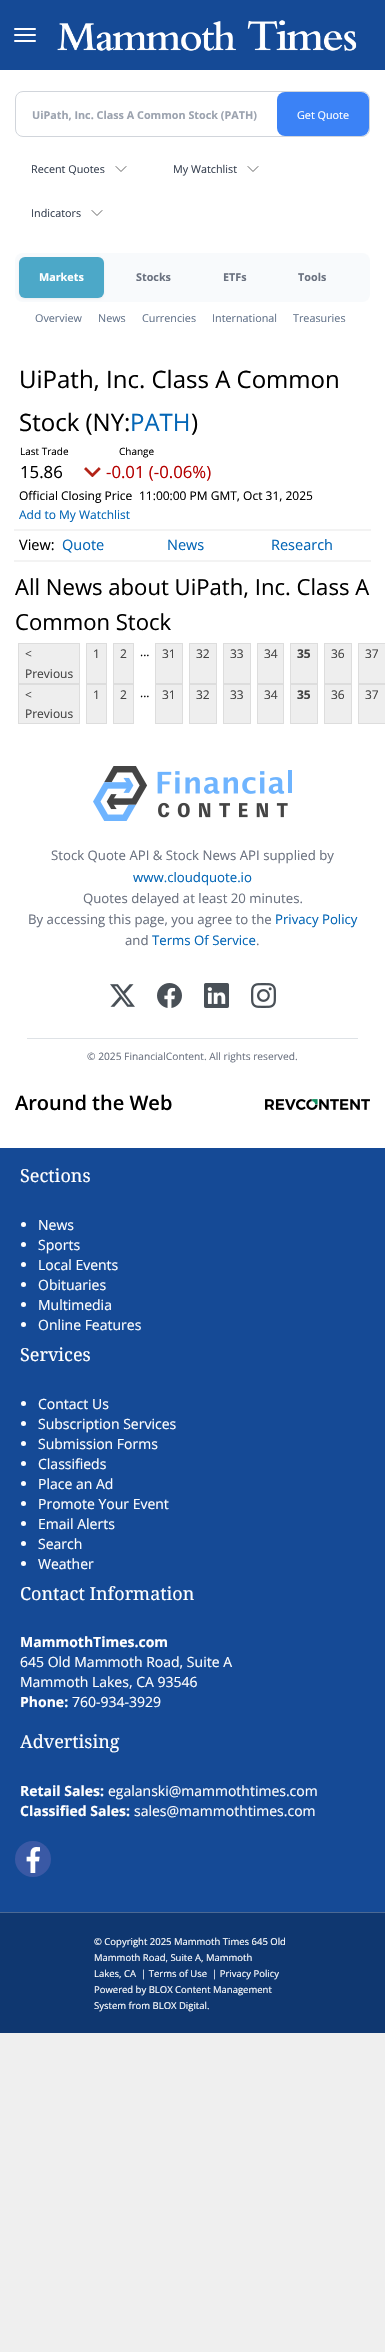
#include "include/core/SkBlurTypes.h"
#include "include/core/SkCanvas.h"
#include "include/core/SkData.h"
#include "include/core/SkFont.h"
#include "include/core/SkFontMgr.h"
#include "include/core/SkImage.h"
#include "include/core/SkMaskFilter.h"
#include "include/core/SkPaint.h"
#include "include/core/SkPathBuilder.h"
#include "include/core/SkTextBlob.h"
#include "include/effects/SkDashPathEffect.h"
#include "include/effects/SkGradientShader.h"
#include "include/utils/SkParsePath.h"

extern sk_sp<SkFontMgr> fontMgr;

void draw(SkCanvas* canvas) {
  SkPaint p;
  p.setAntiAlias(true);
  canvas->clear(SkColorSetRGB(239, 239, 239));
  p.setColor(SkColorSetRGB(21, 74, 150));
  canvas->drawRect(SkRect::MakeLTRB(0, 0, 385, 70), p);
  p.setColor(SK_ColorWHITE);
  canvas->drawRoundRect(SkRect::MakeLTRB(14, 28, 36, 30), 1, 1, p);
  canvas->drawRoundRect(SkRect::MakeLTRB(14, 34, 36, 36), 1, 1, p);
  canvas->drawRoundRect(SkRect::MakeLTRB(14, 40, 36, 42), 1, 1, p);
  canvas->drawImageRect(SkImages::DeferredFromEncodedData(SkData::MakeFromFileName("images/1.png")), SkRect::MakeLTRB(57, 20, 357, 51), SkSamplingOptions());
  canvas->drawRect(SkRect::MakeLTRB(0, 70, 385, 1148), p);
  p.setStyle(SkPaint::kStroke_Style);
  p.setStrokeWidth(1);
  p.setColor(SkColorSetRGB(209, 213, 219));
  canvas->drawRoundRect(SkRect::MakeLTRB(15.5f, 91.5f, 369.5f, 136.5f), 7.5f, 7.5f, p);
  p.setStyle(SkPaint::kFill_Style);
  p.setColor(SkColorSetRGB(59, 130, 246));
  canvas->drawRoundRect(SkRect::MakeLTRB(277, 92, 369, 136), 8, 8, p);
  p.setStyle(SkPaint::kStroke_Style);
  p.setStrokeCap(SkPaint::kRound_Cap);
  p.setStrokeJoin(SkPaint::kRound_Join);
  p.setColor(SkColorSetRGB(102, 102, 102));
  canvas->drawPath(SkPathBuilder().moveTo(126, 166.5f).lineTo(121, 171.5f).lineTo(116, 166.5f).detach(), p);
  canvas->drawPath(SkPathBuilder().moveTo(258, 166.5f).lineTo(253, 171.5f).lineTo(248, 166.5f).detach(), p);
  canvas->drawPath(SkPathBuilder().moveTo(102, 210.5f).lineTo(97, 215.5f).lineTo(92, 210.5f).detach(), p);
  p.setStyle(SkPaint::kFill_Style);
  p.setColor(SkColorSetRGB(248, 250, 252));
  canvas->drawRoundRect(SkRect::MakeLTRB(15, 253, 370, 302), 8, 8, p);
  p.setColor(SkColorSetARGB(13, 0, 0, 0));
  p.setMaskFilter(SkMaskFilter::MakeBlur(kNormal_SkBlurStyle, 1));
  canvas->drawRoundRect(SkRect::MakeLTRB(19, 258, 104, 299), 6, 6, p);
  p.setMaskFilter(nullptr);
  p.setColor(SkColorSetRGB(76, 168, 200));
  canvas->drawRoundRect(SkRect::MakeLTRB(19, 257, 104, 298), 6, 6, p);
  canvas->drawImageRect(SkImages::DeferredFromEncodedData(SkData::MakeFromFileName("images/2.png")), SkRect::MakeLTRB(84, 467, 101, 477), SkSamplingOptions());
  p.setColor(SkColorSetRGB(243, 243, 243));
  canvas->drawRect(SkRect::MakeLTRB(14, 529, 371, 531), p);
  canvas->drawRect(SkRect::MakeLTRB(14, 560, 371, 562), p);
  p.setColor(SkColorSetRGB(238, 238, 238));
  canvas->drawRect(SkRect::MakeLTRB(18.5f, 643.5f, 79.5f, 683.5f), p);
  p.setStyle(SkPaint::kStroke_Style);
  p.setStrokeCap(SkPaint::kButt_Cap);
  p.setStrokeJoin(SkPaint::kMiter_Join);
  p.setColor(SkColorSetRGB(221, 221, 221));
  canvas->drawRect(SkRect::MakeLTRB(18.5f, 643.5f, 79.5f, 683.5f), p);
  p.setStyle(SkPaint::kFill_Style);
  p.setColor(SkColorSetRGB(238, 238, 238));
  canvas->drawRect(SkRect::MakeLTRB(86.5f, 643.5f, 106.5f, 683.5f), p);
  p.setStyle(SkPaint::kStroke_Style);
  p.setColor(SkColorSetRGB(221, 221, 221));
  canvas->drawRect(SkRect::MakeLTRB(86.5f, 643.5f, 106.5f, 683.5f), p);
  p.setStyle(SkPaint::kFill_Style);
  p.setColor(SkColorSetRGB(238, 238, 238));
  canvas->drawRect(SkRect::MakeLTRB(113.5f, 643.5f, 133.5f, 683.5f), p);
  p.setStyle(SkPaint::kStroke_Style);
  p.setColor(SkColorSetRGB(221, 221, 221));
  canvas->drawRect(SkRect::MakeLTRB(113.5f, 643.5f, 133.5f, 683.5f), p);
  p.setStyle(SkPaint::kFill_Style);
  p.setColor(SkColorSetRGB(238, 238, 238));
  canvas->drawRect(SkRect::MakeLTRB(155.5f, 643.5f, 182.5f, 683.5f), p);
  p.setStyle(SkPaint::kStroke_Style);
  p.setColor(SkColorSetRGB(221, 221, 221));
  canvas->drawRect(SkRect::MakeLTRB(155.5f, 643.5f, 182.5f, 683.5f), p);
  p.setStyle(SkPaint::kFill_Style);
  p.setColor(SkColorSetRGB(238, 238, 238));
  canvas->drawRect(SkRect::MakeLTRB(189.5f, 643.5f, 216.5f, 683.5f), p);
  p.setStyle(SkPaint::kStroke_Style);
  p.setColor(SkColorSetRGB(221, 221, 221));
  canvas->drawRect(SkRect::MakeLTRB(189.5f, 643.5f, 216.5f, 683.5f), p);
  p.setStyle(SkPaint::kFill_Style);
  p.setColor(SkColorSetRGB(238, 238, 238));
  canvas->drawRect(SkRect::MakeLTRB(223.5f, 643.5f, 250.5f, 683.5f), p);
  p.setStyle(SkPaint::kStroke_Style);
  p.setColor(SkColorSetRGB(221, 221, 221));
  canvas->drawRect(SkRect::MakeLTRB(223.5f, 643.5f, 250.5f, 683.5f), p);
  p.setStyle(SkPaint::kFill_Style);
  p.setColor(SkColorSetRGB(238, 238, 238));
  canvas->drawRect(SkRect::MakeLTRB(257.5f, 643.5f, 283.5f, 683.5f), p);
  p.setStyle(SkPaint::kStroke_Style);
  p.setColor(SkColorSetRGB(221, 221, 221));
  canvas->drawRect(SkRect::MakeLTRB(257.5f, 643.5f, 283.5f, 683.5f), p);
  p.setStyle(SkPaint::kFill_Style);
  p.setColor(SkColorSetRGB(238, 238, 238));
  canvas->drawRect(SkRect::MakeLTRB(290.5f, 643.5f, 317.5f, 683.5f), p);
  p.setStyle(SkPaint::kStroke_Style);
  p.setColor(SkColorSetRGB(221, 221, 221));
  canvas->drawRect(SkRect::MakeLTRB(290.5f, 643.5f, 317.5f, 683.5f), p);
  p.setStyle(SkPaint::kFill_Style);
  p.setColor(SkColorSetRGB(238, 238, 238));
  canvas->drawRect(SkRect::MakeLTRB(324.5f, 643.5f, 351.5f, 683.5f), p);
  p.setStyle(SkPaint::kStroke_Style);
  p.setColor(SkColorSetRGB(221, 221, 221));
  canvas->drawRect(SkRect::MakeLTRB(324.5f, 643.5f, 351.5f, 683.5f), p);
  p.setStyle(SkPaint::kFill_Style);
  p.setColor(SkColorSetRGB(238, 238, 238));
  canvas->drawRect(SkRect::MakeLTRB(358.5f, 643.5f, 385.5f, 683.5f), p);
  p.setStyle(SkPaint::kStroke_Style);
  p.setColor(SkColorSetRGB(221, 221, 221));
  canvas->drawRect(SkRect::MakeLTRB(358.5f, 643.5f, 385.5f, 683.5f), p);
  p.setStyle(SkPaint::kFill_Style);
  p.setColor(SkColorSetRGB(238, 238, 238));
  canvas->drawRect(SkRect::MakeLTRB(18.5f, 684.5f, 79.5f, 723.5f), p);
  p.setStyle(SkPaint::kStroke_Style);
  p.setColor(SkColorSetRGB(221, 221, 221));
  canvas->drawRect(SkRect::MakeLTRB(18.5f, 684.5f, 79.5f, 723.5f), p);
  p.setStyle(SkPaint::kFill_Style);
  p.setColor(SkColorSetRGB(238, 238, 238));
  canvas->drawRect(SkRect::MakeLTRB(86.5f, 684.5f, 106.5f, 723.5f), p);
  p.setStyle(SkPaint::kStroke_Style);
  p.setColor(SkColorSetRGB(221, 221, 221));
  canvas->drawRect(SkRect::MakeLTRB(86.5f, 684.5f, 106.5f, 723.5f), p);
  p.setStyle(SkPaint::kFill_Style);
  p.setColor(SkColorSetRGB(238, 238, 238));
  canvas->drawRect(SkRect::MakeLTRB(113.5f, 684.5f, 133.5f, 723.5f), p);
  p.setStyle(SkPaint::kStroke_Style);
  p.setColor(SkColorSetRGB(221, 221, 221));
  canvas->drawRect(SkRect::MakeLTRB(113.5f, 684.5f, 133.5f, 723.5f), p);
  p.setStyle(SkPaint::kFill_Style);
  p.setColor(SkColorSetRGB(238, 238, 238));
  canvas->drawRect(SkRect::MakeLTRB(155.5f, 684.5f, 182.5f, 723.5f), p);
  p.setStyle(SkPaint::kStroke_Style);
  p.setColor(SkColorSetRGB(221, 221, 221));
  canvas->drawRect(SkRect::MakeLTRB(155.5f, 684.5f, 182.5f, 723.5f), p);
  p.setStyle(SkPaint::kFill_Style);
  p.setColor(SkColorSetRGB(238, 238, 238));
  canvas->drawRect(SkRect::MakeLTRB(189.5f, 684.5f, 216.5f, 723.5f), p);
  p.setStyle(SkPaint::kStroke_Style);
  p.setColor(SkColorSetRGB(221, 221, 221));
  canvas->drawRect(SkRect::MakeLTRB(189.5f, 684.5f, 216.5f, 723.5f), p);
  p.setStyle(SkPaint::kFill_Style);
  p.setColor(SkColorSetRGB(238, 238, 238));
  canvas->drawRect(SkRect::MakeLTRB(223.5f, 684.5f, 250.5f, 723.5f), p);
  p.setStyle(SkPaint::kStroke_Style);
  p.setColor(SkColorSetRGB(221, 221, 221));
  canvas->drawRect(SkRect::MakeLTRB(223.5f, 684.5f, 250.5f, 723.5f), p);
  p.setStyle(SkPaint::kFill_Style);
  p.setColor(SkColorSetRGB(238, 238, 238));
  canvas->drawRect(SkRect::MakeLTRB(257.5f, 684.5f, 283.5f, 723.5f), p);
  p.setStyle(SkPaint::kStroke_Style);
  p.setColor(SkColorSetRGB(221, 221, 221));
  canvas->drawRect(SkRect::MakeLTRB(257.5f, 684.5f, 283.5f, 723.5f), p);
  p.setStyle(SkPaint::kFill_Style);
  p.setColor(SkColorSetRGB(238, 238, 238));
  canvas->drawRect(SkRect::MakeLTRB(290.5f, 684.5f, 317.5f, 723.5f), p);
  p.setStyle(SkPaint::kStroke_Style);
  p.setColor(SkColorSetRGB(221, 221, 221));
  canvas->drawRect(SkRect::MakeLTRB(290.5f, 684.5f, 317.5f, 723.5f), p);
  p.setStyle(SkPaint::kFill_Style);
  p.setColor(SkColorSetRGB(238, 238, 238));
  canvas->drawRect(SkRect::MakeLTRB(324.5f, 684.5f, 351.5f, 723.5f), p);
  p.setStyle(SkPaint::kStroke_Style);
  p.setColor(SkColorSetRGB(221, 221, 221));
  canvas->drawRect(SkRect::MakeLTRB(324.5f, 684.5f, 351.5f, 723.5f), p);
  p.setStyle(SkPaint::kFill_Style);
  p.setColor(SkColorSetRGB(238, 238, 238));
  canvas->drawRect(SkRect::MakeLTRB(358.5f, 684.5f, 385.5f, 723.5f), p);
  p.setStyle(SkPaint::kStroke_Style);
  p.setColor(SkColorSetRGB(221, 221, 221));
  canvas->drawRect(SkRect::MakeLTRB(358.5f, 684.5f, 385.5f, 723.5f), p);
  canvas->drawImageRect(SkImages::DeferredFromEncodedData(SkData::MakeFromFileName("images/3.png")), SkRect::MakeLTRB(93, 766, 292, 821), SkSamplingOptions());
  canvas->drawImageRect(SkImages::DeferredFromEncodedData(SkData::MakeFromFileName("images/4.png")), SkRect::MakeLTRB(110, 984, 135, 1007), SkSamplingOptions());
  canvas->drawImageRect(SkImages::DeferredFromEncodedData(SkData::MakeFromFileName("images/5.png")), SkRect::MakeLTRB(157, 983, 182, 1008), SkSamplingOptions());
  canvas->drawImageRect(SkImages::DeferredFromEncodedData(SkData::MakeFromFileName("images/6.png")), SkRect::MakeLTRB(204, 983, 229, 1008), SkSamplingOptions());
  canvas->drawImageRect(SkImages::DeferredFromEncodedData(SkData::MakeFromFileName("images/7.png")), SkRect::MakeLTRB(251, 983, 276, 1008), SkSamplingOptions());
  p.setStyle(SkPaint::kFill_Style);
  p.setColor(SkColorSetRGB(222, 226, 230));
  canvas->drawRect(SkRect::MakeLTRB(27, 1038, 358, 1039), p);
  canvas->drawImageRect(SkImages::DeferredFromEncodedData(SkData::MakeFromFileName("images/8.png")), SkRect::MakeLTRB(265, 1099, 370, 1110), SkSamplingOptions());
  p.setColor(SkColorSetRGB(21, 74, 150));
  canvas->drawRect(SkRect::MakeLTRB(0, 1148, 385, 1912), p);
  p.setColor(SK_ColorWHITE);
  canvas->drawCircle(23.5f, 1224.5f, 2.5f, p);
  canvas->drawCircle(23.5f, 1244.5f, 2.5f, p);
  canvas->drawCircle(23.5f, 1264.5f, 2.5f, p);
  canvas->drawCircle(23.5f, 1284.5f, 2.5f, p);
  canvas->drawCircle(23.5f, 1304.5f, 2.5f, p);
  canvas->drawCircle(23.5f, 1324.5f, 2.5f, p);
  canvas->drawCircle(23.5f, 1403.5f, 2.5f, p);
  canvas->drawCircle(23.5f, 1423.5f, 2.5f, p);
  canvas->drawCircle(23.5f, 1443.5f, 2.5f, p);
  canvas->drawCircle(23.5f, 1463.5f, 2.5f, p);
  canvas->drawCircle(23.5f, 1483.5f, 2.5f, p);
  canvas->drawCircle(23.5f, 1503.5f, 2.5f, p);
  canvas->drawCircle(23.5f, 1523.5f, 2.5f, p);
  canvas->drawCircle(23.5f, 1543.5f, 2.5f, p);
  canvas->drawCircle(23.5f, 1563.5f, 2.5f, p);
  p.setColor(SkColorSetRGB(58, 89, 165));
  canvas->drawCircle(33, 1859, 18, p);
  canvas->drawImageRect(SkImages::DeferredFromEncodedData(SkData::MakeFromFileName("images/9.png")), SkRect::MakeLTRB(26, 1847, 40, 1873), SkSamplingOptions());
  p.setColor(SkColorSetRGB(15, 55, 112));
  canvas->drawRect(SkRect::MakeLTRB(0, 1913, 385, 2033), p);
  p.setColor(SkColorSetRGB(75, 105, 148));
  canvas->drawRect(SkRect::MakeLTRB(0, 1912, 385, 1913), p);
  SkFont font1(fontMgr->matchFamilyStyle("Open Sans", SkFontStyle::Bold()), 10.8f);
  font1.setSubpixel(true);
  p.setColor(SkColorSetRGB(156, 163, 175));
  canvas->drawString("UiPath, Inc. Class A Common Stock (PATH)", 32, 119, font1, p);
  SkFont font2(fontMgr->matchFamilyStyle("Open Sans", SkFontStyle::Normal()), 10.8f);
  font2.setSubpixel(true);
  p.setColor(SK_ColorWHITE);
  canvas->drawString("Get Quote", 297, 119, font2, p);
  p.setColor(SkColorSetRGB(55, 65, 81));
  canvas->drawString("Recent Quotes", 31, 173, font2, p);
  canvas->drawString("My Watchlist", 173, 173, font2, p);
  canvas->drawString("Indicators", 31, 217, font2, p);
  p.setColor(SK_ColorWHITE);
  canvas->drawString("Markets", 39, 281, font1, p);
  p.setColor(SkColorSetRGB(107, 114, 128));
  canvas->drawString("Stocks", 136, 281, font1, p);
  canvas->drawString("ETFs", 223, 281, font1, p);
  canvas->drawString("Tools", 298, 281, font1, p);
  p.setColor(SkColorSetRGB(100, 116, 139));
  canvas->drawString("Overview", 35, 322, font2, p);
  canvas->drawString("News", 98, 322, font2, p);
  canvas->drawString("Currencies", 142, 322, font2, p);
  canvas->drawString("International", 212, 322, font2, p);
  canvas->drawString("Treasuries", 293, 322, font2, p);
  SkFont font3(fontMgr->matchFamilyStyle("Open Sans", SkFontStyle::Normal()), 24);
  font3.setSubpixel(true);
  p.setColor(SK_ColorBLACK);
  canvas->drawString("UiPath, Inc. Class A Common", 19, 388, font3, p);
  canvas->drawString("Stock (NY:", 19, 431, font3, p);
  p.setColor(SkColorSetRGB(4, 102, 182));
  canvas->drawString("PATH", 130, 431, font3, p);
  p.setColor(SK_ColorBLACK);
  canvas->drawString(")", 191, 431, font3, p);
  SkFont font4(fontMgr->matchFamilyStyle("Open Sans", SkFontStyle::Normal()), 10);
  font4.setSubpixel(true);
  canvas->drawString("Last Trade", 20, 455, font4, p);
  SkFont font5(fontMgr->matchFamilyStyle("Open Sans", SkFontStyle::Normal()), 16.75f);
  font5.setSubpixel(true);
  canvas->drawString("15.86", 20, 478, font5, p);
  canvas->drawString("Change", 119, 455, font4, p);
  p.setColor(SkColorSetRGB(181, 0, 0));
  canvas->drawString("-0.01 (-0.06%)", 106, 478, font5, p);
  SkFont font6(fontMgr->matchFamilyStyle("Open Sans", SkFontStyle::Normal()), 12);
  font6.setSubpixel(true);
  p.setColor(SK_ColorBLACK);
  canvas->drawString("Official Closing Price", 19, 500, font6, p);
  canvas->drawString("11:00:00 PM GMT, Oct 31, 2025", 139, 500, font6, p);
  p.setColor(SkColorSetRGB(4, 102, 182));
  canvas->drawString("Add to My Watchlist", 19, 519, font6, p);
  SkFont font7(fontMgr->matchFamilyStyle("Open Sans", SkFontStyle::Normal()), 14.5f);
  font7.setSubpixel(true);
  p.setColor(SK_ColorBLACK);
  canvas->drawString("View:", 19, 550, font7, p);
  p.setColor(SkColorSetRGB(4, 102, 182));
  canvas->drawString("Quote", 62, 550, font7, p);
  canvas->drawString("News", 167, 550, font7, p);
  canvas->drawString("Research", 271, 550, font7, p);
  SkFont font8(fontMgr->matchFamilyStyle("Open Sans", SkFontStyle::Normal()), 22.1f);
  font8.setSubpixel(true);
  p.setColor(SK_ColorBLACK);
  canvas->drawString("All News about UiPath, Inc. Class A", 15, 595, font8, p);
  canvas->drawString("Common Stock", 15, 630, font8, p);
  p.setColor(SkColorSetRGB(68, 68, 68));
  canvas->drawString("<", 25, 658, font6, p);
  canvas->drawString("Previous", 25, 678, font6, p);
  canvas->drawString("1", 93, 658, font6, p);
  canvas->drawString("2", 120, 658, font6, p);
  p.setColor(SK_ColorBLACK);
  canvas->drawString("...", 140, 656, font6, p);
  p.setColor(SkColorSetRGB(68, 68, 68));
  canvas->drawString("31", 162, 658, font6, p);
  canvas->drawString("32", 196, 658, font6, p);
  canvas->drawString("33", 230, 658, font6, p);
  canvas->drawString("34", 264, 658, font6, p);
  SkFont font9(fontMgr->matchFamilyStyle("Open Sans", SkFontStyle::Bold()), 12);
  font9.setSubpixel(true);
  canvas->drawString("35", 297, 658, font9, p);
  canvas->drawString("36", 331, 658, font6, p);
  canvas->drawString("37", 365, 658, font6, p);
  canvas->drawString("<", 25, 699, font6, p);
  canvas->drawString("Previous", 25, 718, font6, p);
  canvas->drawString("1", 93, 699, font6, p);
  canvas->drawString("2", 120, 699, font6, p);
  p.setColor(SK_ColorBLACK);
  canvas->drawString("...", 140, 697, font6, p);
  p.setColor(SkColorSetRGB(68, 68, 68));
  canvas->drawString("31", 162, 699, font6, p);
  canvas->drawString("32", 196, 699, font6, p);
  canvas->drawString("33", 230, 699, font6, p);
  canvas->drawString("34", 264, 699, font6, p);
  canvas->drawString("35", 297, 699, font9, p);
  canvas->drawString("36", 331, 699, font6, p);
  canvas->drawString("37", 365, 699, font6, p);
  SkFont font10(fontMgr->matchFamilyStyle("Open Sans", SkFontStyle::Normal()), 13.2f);
  font10.setSubpixel(true);
  p.setColor(SkColorSetRGB(107, 114, 128));
  canvas->drawString("Stock Quote API & Stock News API supplied by", 51, 860, font10, p);
  p.setColor(SkColorSetRGB(4, 102, 182));
  canvas->drawString("www.cloudquote.io", 133, 882, font10, p);
  p.setColor(SkColorSetRGB(107, 114, 128));
  canvas->drawString("Quotes delayed at least 20 minutes.", 83, 903, font10, p);
  canvas->drawString("By accessing this page, you agree to the", 28, 924, font10, p);
  p.setColor(SkColorSetRGB(4, 102, 182));
  canvas->drawString("Privacy Policy", 275, 924, font10, p);
  p.setColor(SkColorSetRGB(107, 114, 128));
  canvas->drawString("and", 125, 945, font10, p);
  p.setColor(SkColorSetRGB(4, 102, 182));
  canvas->drawString("Terms Of Service", 152, 945, font10, p);
  p.setColor(SkColorSetRGB(107, 114, 128));
  canvas->drawString(".", 256, 945, font10, p);
  SkFont font11(fontMgr->matchFamilyStyle("Open Sans", SkFontStyle::Normal()), 10.2f);
  font11.setSubpixel(true);
  canvas->drawString("© 2025 FinancialContent. All rights reserved.", 87, 1060, font11, p);
  SkFont font12(fontMgr->matchFamilyStyle("Open Sans", SkFontStyle(600, SkFontStyle::kNormal_Width, SkFontStyle::kUpright_Slant)), 20);
  font12.setSubpixel(true);
  p.setColor(SK_ColorBLACK);
  canvas->drawString("Around the Web", 15, 1110, font12, p);
  SkFont font13(fontMgr->matchFamilyStyle("Droid Serif", SkFontStyle::Normal()), 18);
  font13.setSubpixel(true);
  p.setColor(SK_ColorWHITE);
  canvas->drawString("Sections", 20, 1182, font13, p);
  SkFont font14(fontMgr->matchFamilyStyle("Open Sans", SkFontStyle::Normal()), 14);
  font14.setSubpixel(true);
  canvas->drawString("News", 38, 1230, font14, p);
  canvas->drawString("Sports", 38, 1250, font14, p);
  canvas->drawString("Local Events", 38, 1270, font14, p);
  canvas->drawString("Obituaries", 38, 1290, font14, p);
  canvas->drawString("Multimedia", 38, 1310, font14, p);
  canvas->drawString("Online Features", 38, 1330, font14, p);
  canvas->drawString("Services", 20, 1361, font13, p);
  canvas->drawString("Contact Us", 38, 1409, font14, p);
  canvas->drawString("Subscription Services", 38, 1429, font14, p);
  canvas->drawString("Submission Forms", 38, 1449, font14, p);
  canvas->drawString("Classifieds", 38, 1469, font14, p);
  canvas->drawString("Place an Ad", 38, 1489, font14, p);
  canvas->drawString("Promote Your Event", 38, 1509, font14, p);
  canvas->drawString("Email Alerts", 38, 1529, font14, p);
  canvas->drawString("Search", 38, 1549, font14, p);
  canvas->drawString("Weather", 38, 1569, font14, p);
  canvas->drawString("Contact Information", 20, 1600, font13, p);
  SkFont font15(fontMgr->matchFamilyStyle("Open Sans", SkFontStyle::Bold()), 14);
  font15.setSubpixel(true);
  canvas->drawString("MammothTimes.com", 20, 1647, font15, p);
  canvas->drawString("645 Old Mammoth Road, Suite A", 20, 1667, font14, p);
  canvas->drawString("Mammoth Lakes, CA 93546", 20, 1687, font14, p);
  canvas->drawString("Phone:", 20, 1707, font15, p);
  canvas->drawString("760-934-3929", 72, 1707, font14, p);
  canvas->drawString("Advertising", 20, 1748, font13, p);
  canvas->drawString("Retail Sales:", 20, 1796, font15, p);
  canvas->drawString("egalanski@mammothtimes.com", 108, 1796, font14, p);
  canvas->drawString("Classified Sales:", 20, 1816, font15, p);
  canvas->drawString("sales@mammothtimes.com", 134, 1816, font14, p);
  SkFont font16(fontMgr->matchFamilyStyle("Open Sans", SkFontStyle::Normal()), 9.5f);
  font16.setSubpixel(true);
  canvas->drawString("© Copyright 2025 Mammoth Times 645 Old", 94, 1945, font16, p);
  canvas->drawString("Mammoth Road, Suite A, Mammoth", 94, 1961, font16, p);
  canvas->drawString("Lakes, CA", 94, 1977, font16, p);
  canvas->drawString("| Terms of Use", 141, 1977, font16, p);
  canvas->drawString("| Privacy Policy", 212, 1977, font16, p);
  canvas->drawString("Powered by BLOX Content Management", 94, 1993, font16, p);
  canvas->drawString("System from BLOX Digital.", 94, 2009, font16, p);
}
